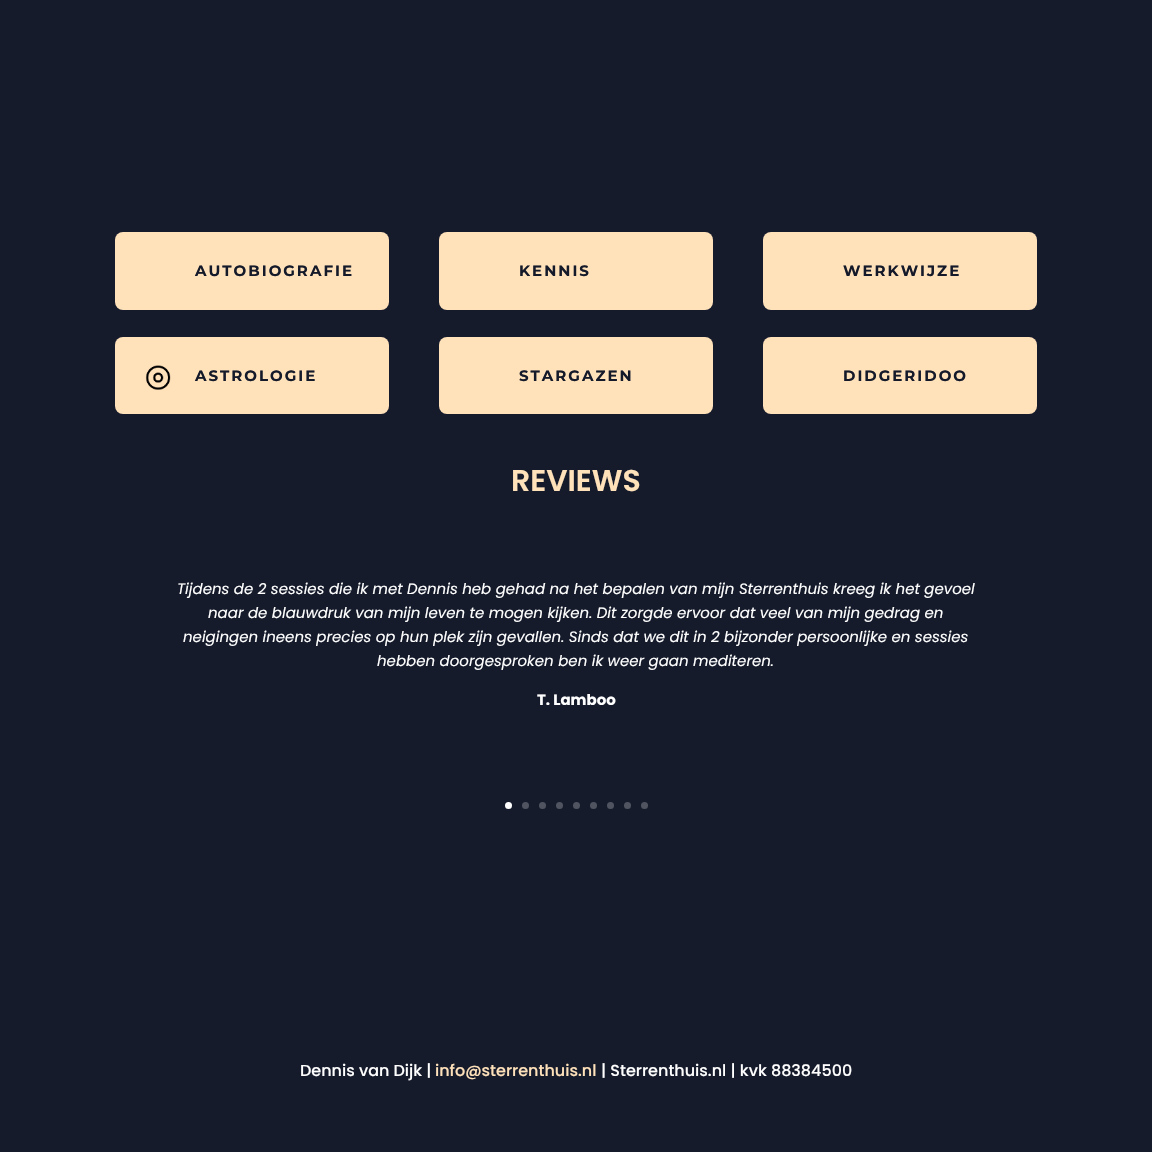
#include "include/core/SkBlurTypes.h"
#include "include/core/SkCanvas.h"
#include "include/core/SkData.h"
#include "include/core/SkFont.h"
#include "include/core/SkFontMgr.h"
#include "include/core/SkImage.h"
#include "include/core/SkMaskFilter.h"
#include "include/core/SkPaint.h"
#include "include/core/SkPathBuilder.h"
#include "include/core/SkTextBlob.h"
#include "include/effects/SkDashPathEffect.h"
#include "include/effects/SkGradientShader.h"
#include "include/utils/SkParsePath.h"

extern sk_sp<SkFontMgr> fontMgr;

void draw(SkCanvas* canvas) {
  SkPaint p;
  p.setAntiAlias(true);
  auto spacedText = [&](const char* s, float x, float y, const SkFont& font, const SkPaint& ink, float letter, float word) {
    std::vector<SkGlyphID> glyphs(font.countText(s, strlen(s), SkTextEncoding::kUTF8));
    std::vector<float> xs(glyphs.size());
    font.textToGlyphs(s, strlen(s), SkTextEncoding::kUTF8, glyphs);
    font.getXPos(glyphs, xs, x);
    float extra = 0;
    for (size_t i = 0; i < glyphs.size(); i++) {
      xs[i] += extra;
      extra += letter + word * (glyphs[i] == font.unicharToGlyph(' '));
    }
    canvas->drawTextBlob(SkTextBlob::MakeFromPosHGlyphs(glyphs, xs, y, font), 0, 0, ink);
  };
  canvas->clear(SkColorSetRGB(21, 27, 43));
  p.setColor(SkColorSetRGB(255, 225, 186));
  canvas->drawRoundRect(SkRect::MakeLTRB(115, 232, 389, 310), 8, 8, p);
  canvas->drawRoundRect(SkRect::MakeLTRB(439, 232, 713, 310), 8, 8, p);
  canvas->drawRoundRect(SkRect::MakeLTRB(763, 232, 1037, 310), 8, 8, p);
  canvas->drawRoundRect(SkRect::MakeLTRB(115, 337, 389, 414), 8, 8, p);
  canvas->drawImageRect(SkImages::DeferredFromEncodedData(SkData::MakeFromFileName("images/1.png")), SkRect::MakeLTRB(145, 365, 171, 390), SkSamplingOptions());
  canvas->drawRoundRect(SkRect::MakeLTRB(439, 337, 713, 414), 8, 8, p);
  canvas->drawRoundRect(SkRect::MakeLTRB(763, 337, 1037, 414), 8, 8, p);
  p.setColor(SK_ColorWHITE);
  canvas->drawCircle(508.5f, 805.5f, 3.5f, p);
  p.setColor(SkColorSetRGB(80, 84, 96));
  canvas->drawCircle(525.5f, 805.5f, 3.5f, p);
  canvas->drawCircle(542.5f, 805.5f, 3.5f, p);
  canvas->drawCircle(559.5f, 805.5f, 3.5f, p);
  canvas->drawCircle(576.5f, 805.5f, 3.5f, p);
  canvas->drawCircle(593.5f, 805.5f, 3.5f, p);
  canvas->drawCircle(610.5f, 805.5f, 3.5f, p);
  canvas->drawCircle(627.5f, 805.5f, 3.5f, p);
  canvas->drawCircle(644.5f, 805.5f, 3.5f, p);
  SkFont font1(fontMgr->matchFamilyStyle("Montserrat", SkFontStyle(100, SkFontStyle::kNormal_Width, SkFontStyle::kUpright_Slant)), 15);
  font1.setSubpixel(true);
  p.setColor(SkColorSetRGB(21, 26, 42));
  spacedText("AUTOBIOGRAFIE", 195, 276, font1, p, 2, 0);
  spacedText("KENNIS", 519, 276, font1, p, 2, 0);
  spacedText("WERKWIJZE", 843, 276, font1, p, 2, 0);
  spacedText("ASTROLOGIE", 195, 381, font1, p, 2, 0);
  spacedText("STARGAZEN", 519, 381, font1, p, 2, 0);
  spacedText("DIDGERIDOO", 843, 381, font1, p, 2, 0);
  SkFont font2(fontMgr->matchFamilyStyle("Poppins", SkFontStyle(600, SkFontStyle::kNormal_Width, SkFontStyle::kUpright_Slant)), 30);
  font2.setSubpixel(true);
  p.setColor(SkColorSetRGB(255, 225, 186));
  canvas->drawString("REVIEWS", 511, 491, font2, p);
  SkFont font3(fontMgr->matchFamilyStyle("Poppins", SkFontStyle::Italic()), 15);
  font3.setSubpixel(true);
  p.setColor(SK_ColorWHITE);
  canvas->drawString("Tijdens de 2 sessies die ik met Dennis heb gehad na het bepalen van mijn Sterrenthuis kreeg ik het gevoel", 177, 594, font3, p);
  canvas->drawString("naar de blauwdruk van mijn leven te mogen kijken. Dit zorgde ervoor dat veel van mijn gedrag en", 208, 618, font3, p);
  canvas->drawString("neigingen ineens precies op hun plek zijn gevallen. Sinds dat we dit in 2 bijzonder persoonlijke en sessies", 183, 642, font3, p);
  canvas->drawString("hebben doorgesproken ben ik weer gaan mediteren.", 377, 666, font3, p);
  SkFont font4(fontMgr->matchFamilyStyle("Poppins", SkFontStyle::Bold()), 15);
  font4.setSubpixel(true);
  canvas->drawString("T. Lamboo", 537, 705, font4, p);
  SkFont font5(fontMgr->matchFamilyStyle("Poppins", SkFontStyle(500, SkFontStyle::kNormal_Width, SkFontStyle::kUpright_Slant)), 16);
  font5.setSubpixel(true);
  canvas->drawString("Dennis van Dijk |", 300, 1076, font5, p);
  p.setColor(SkColorSetRGB(255, 225, 186));
  canvas->drawString("info@sterrenthuis.nl", 435, 1076, font5, p);
  p.setColor(SK_ColorWHITE);
  canvas->drawString("| Sterrenthuis.nl | kvk 88384500", 601, 1076, font5, p);
}
